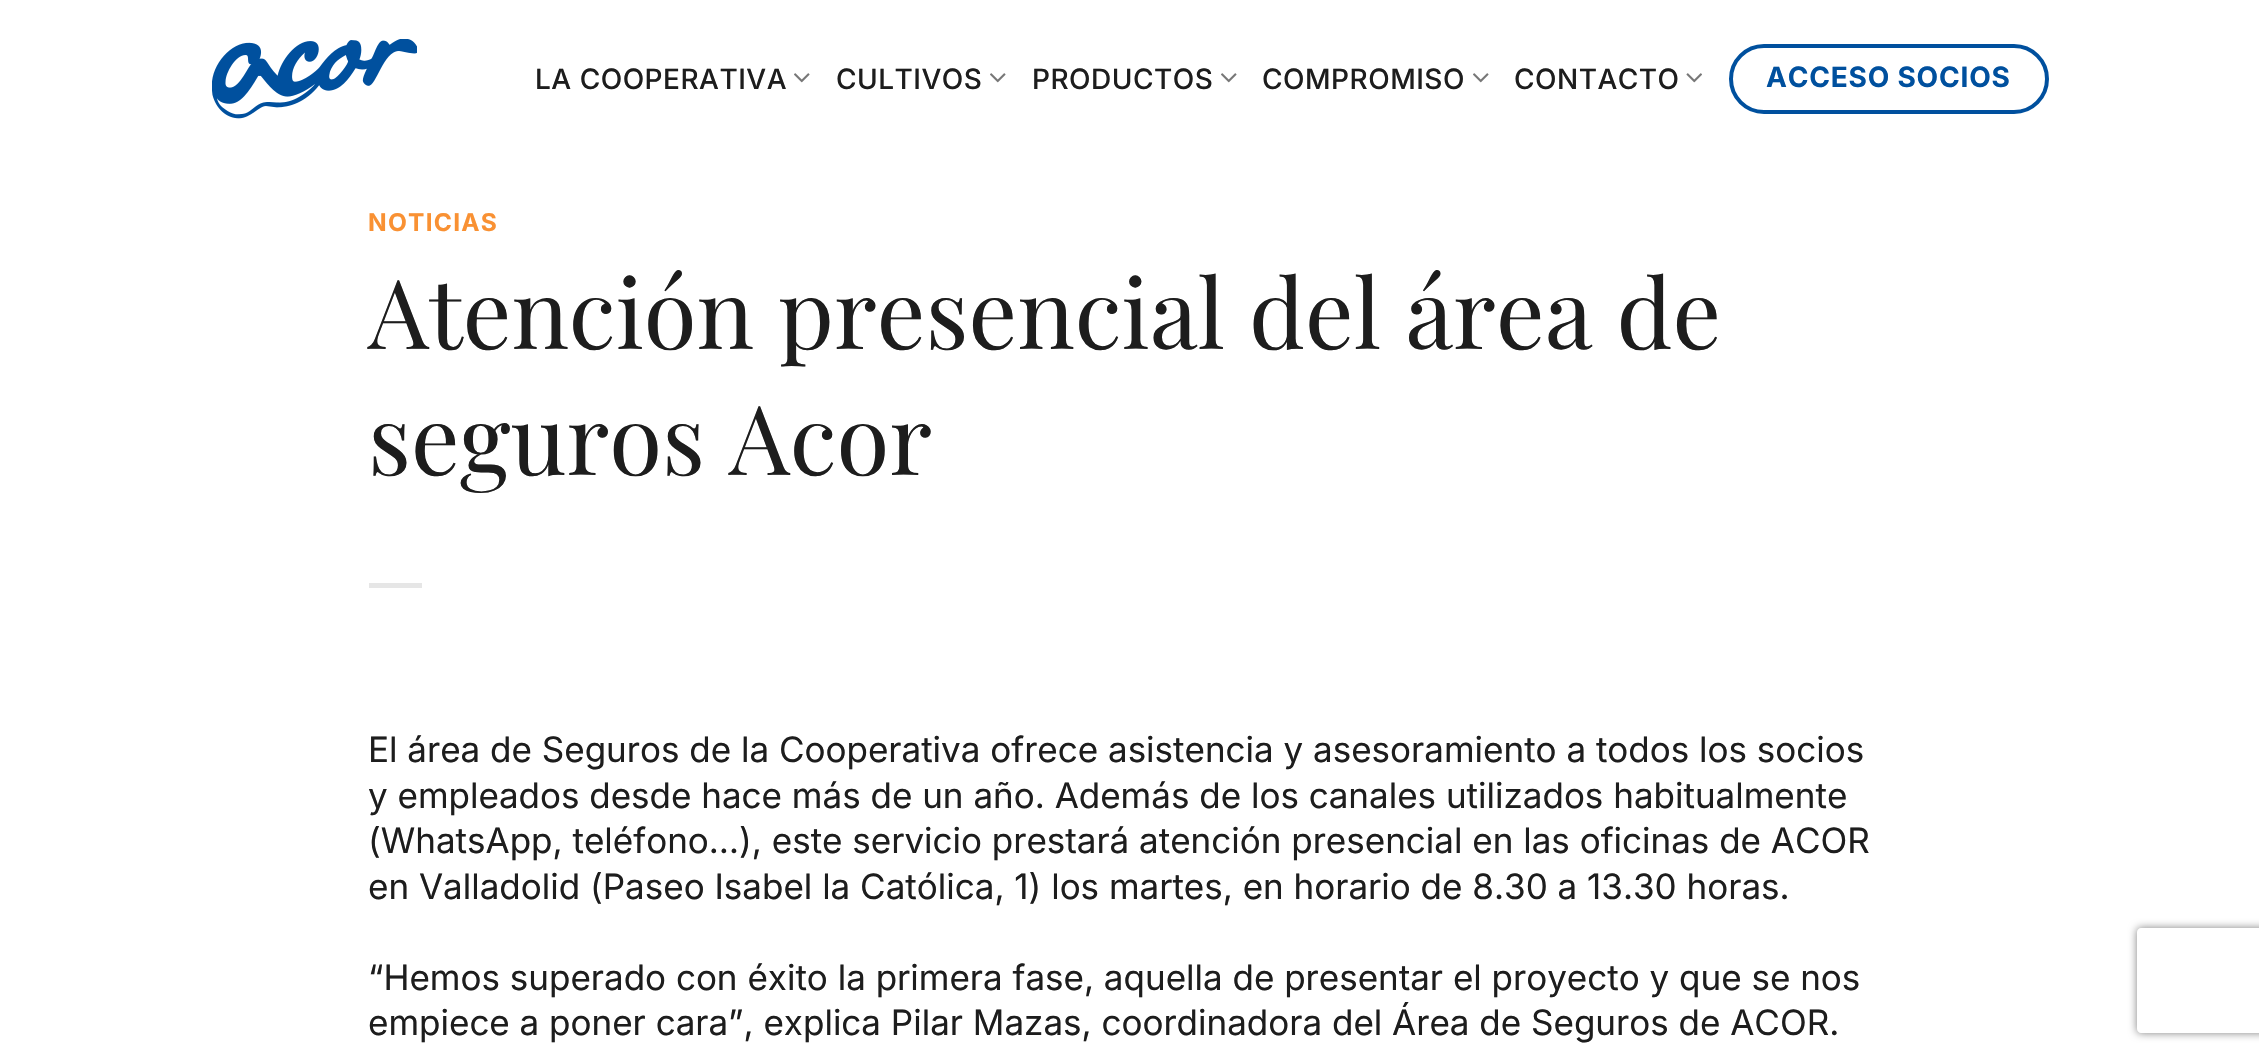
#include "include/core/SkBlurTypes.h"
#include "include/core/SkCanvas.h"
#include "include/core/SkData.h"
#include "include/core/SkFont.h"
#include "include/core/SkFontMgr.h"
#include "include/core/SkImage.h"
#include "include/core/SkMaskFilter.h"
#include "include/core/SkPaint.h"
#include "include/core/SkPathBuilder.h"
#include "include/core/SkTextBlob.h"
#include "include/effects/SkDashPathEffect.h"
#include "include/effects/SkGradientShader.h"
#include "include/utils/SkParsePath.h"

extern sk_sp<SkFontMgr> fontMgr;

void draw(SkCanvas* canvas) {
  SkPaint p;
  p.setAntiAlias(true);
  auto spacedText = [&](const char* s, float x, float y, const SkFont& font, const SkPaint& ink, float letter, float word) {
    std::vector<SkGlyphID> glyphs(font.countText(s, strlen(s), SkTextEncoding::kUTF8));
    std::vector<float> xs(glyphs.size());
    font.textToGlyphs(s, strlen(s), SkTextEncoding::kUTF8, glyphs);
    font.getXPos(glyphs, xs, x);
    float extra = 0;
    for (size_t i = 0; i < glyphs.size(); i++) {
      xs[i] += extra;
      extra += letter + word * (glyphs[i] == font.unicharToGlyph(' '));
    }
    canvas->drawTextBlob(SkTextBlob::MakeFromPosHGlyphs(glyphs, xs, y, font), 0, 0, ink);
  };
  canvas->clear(SK_ColorWHITE);
  canvas->drawImageRect(SkImages::DeferredFromEncodedData(SkData::MakeFromFileName("images/1.png")), SkRect::MakeLTRB(212, 39, 417, 119), SkSamplingOptions());
  canvas->drawImageRect(SkImages::DeferredFromEncodedData(SkData::MakeFromFileName("images/2.png")), SkRect::MakeLTRB(794, 73, 810, 83), SkSamplingOptions());
  canvas->drawImageRect(SkImages::DeferredFromEncodedData(SkData::MakeFromFileName("images/2.png")), SkRect::MakeLTRB(990, 73, 1006, 83), SkSamplingOptions());
  canvas->drawImageRect(SkImages::DeferredFromEncodedData(SkData::MakeFromFileName("images/2.png")), SkRect::MakeLTRB(1221, 73, 1237, 83), SkSamplingOptions());
  canvas->drawImageRect(SkImages::DeferredFromEncodedData(SkData::MakeFromFileName("images/2.png")), SkRect::MakeLTRB(1473, 73, 1489, 83), SkSamplingOptions());
  canvas->drawImageRect(SkImages::DeferredFromEncodedData(SkData::MakeFromFileName("images/3.png")), SkRect::MakeLTRB(1686, 73, 1702, 83), SkSamplingOptions());
  p.setStyle(SkPaint::kStroke_Style);
  p.setStrokeWidth(4);
  p.setColor(SkColorSetRGB(0, 80, 158));
  canvas->drawRoundRect(SkRect::MakeLTRB(1731, 46, 2047, 112), 33, 33, p);
  p.setStyle(SkPaint::kFill_Style);
  p.setColor(SkColorSetRGB(230, 230, 230));
  canvas->drawRect(SkRect::MakeLTRB(369, 583, 422, 588), p);
  canvas->save();
  canvas->clipPath(SkPathBuilder(SkPathFillType::kEvenOdd).moveTo(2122, 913).lineTo(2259, 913).lineTo(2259, 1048).lineTo(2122, 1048).close().moveTo(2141, 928).lineTo(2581, 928).cubicTo(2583, 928, 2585, 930, 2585, 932).lineTo(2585, 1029).cubicTo(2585, 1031, 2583, 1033, 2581, 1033).lineTo(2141, 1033).cubicTo(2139, 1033, 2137, 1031, 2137, 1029).lineTo(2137, 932).cubicTo(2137, 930, 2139, 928, 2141, 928).close().detach(), true);
  p.setColor(SkColorSetRGB(128, 128, 128));
  p.setMaskFilter(SkMaskFilter::MakeBlur(kNormal_SkBlurStyle, 4.5f));
  canvas->drawRoundRect(SkRect::MakeLTRB(2137, 928, 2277, 1033), 4, 4, p);
  p.setMaskFilter(nullptr);
  canvas->restore();
  SkFont font1(fontMgr->matchFamilyStyle("Inter", SkFontStyle(500, SkFontStyle::kNormal_Width, SkFontStyle::kUpright_Slant)), 28);
  font1.setSubpixel(true);
  p.setColor(SkColorSetRGB(29, 29, 29));
  spacedText("LA COOPERATIVA", 535, 89, font1, p, 0.5f, 0);
  spacedText("CULTIVOS", 836, 89, font1, p, 0.5f, 0);
  spacedText("PRODUCTOS", 1032, 89, font1, p, 0.5f, 0);
  spacedText("COMPROMISO", 1262, 89, font1, p, 0.5f, 0);
  spacedText("CONTACTO", 1514, 89, font1, p, 0.5f, 0);
  SkFont font2(fontMgr->matchFamilyStyle("Inter", SkFontStyle::Bold()), 28);
  font2.setSubpixel(true);
  p.setColor(SkColorSetRGB(0, 80, 158));
  spacedText("ACCESO SOCIOS", 1766, 87, font2, p, 0.8f, 0);
  SkFont font3(fontMgr->matchFamilyStyle("Inter", SkFontStyle::Bold()), 24.5f);
  font3.setSubpixel(true);
  p.setColor(SkColorSetRGB(249, 145, 51));
  spacedText("NOTICIAS", 368, 231, font3, p, 1.25f, 0);
  SkFont font4(fontMgr->matchFamilyStyle("Playfair Display", SkFontStyle::Normal()), 96.25f);
  font4.setSubpixel(true);
  p.setColor(SkColorSetRGB(29, 29, 29));
  canvas->drawString("Atención presencial del área de", 368, 349, font4, p);
  canvas->drawString("seguros Acor", 368, 475, font4, p);
  SkFont font5(fontMgr->matchFamilyStyle("Inter", SkFontStyle::Normal()), 35);
  font5.setSubpixel(true);
  canvas->drawString("El área de Seguros de la Cooperativa ofrece asistencia y asesoramiento a todos los socios", 368, 762, font5, p);
  canvas->drawString("y empleados desde hace más de un año. Además de los canales utilizados habitualmente", 368, 808, font5, p);
  canvas->drawString("(WhatsApp, teléfono…), este servicio prestará atención presencial en las oficinas de ACOR", 368, 853, font5, p);
  canvas->drawString("en Valladolid (Paseo Isabel la Católica, 1) los martes, en horario de 8.30 a 13.30 horas.", 368, 899, font5, p);
  canvas->drawString("“Hemos superado con éxito la primera fase, aquella de presentar el proyecto y que se nos", 368, 990, font5, p);
  canvas->drawString("empiece a poner cara”, explica Pilar Mazas, coordinadora del Área de Seguros de ACOR.", 368, 1035, font5, p);
}
